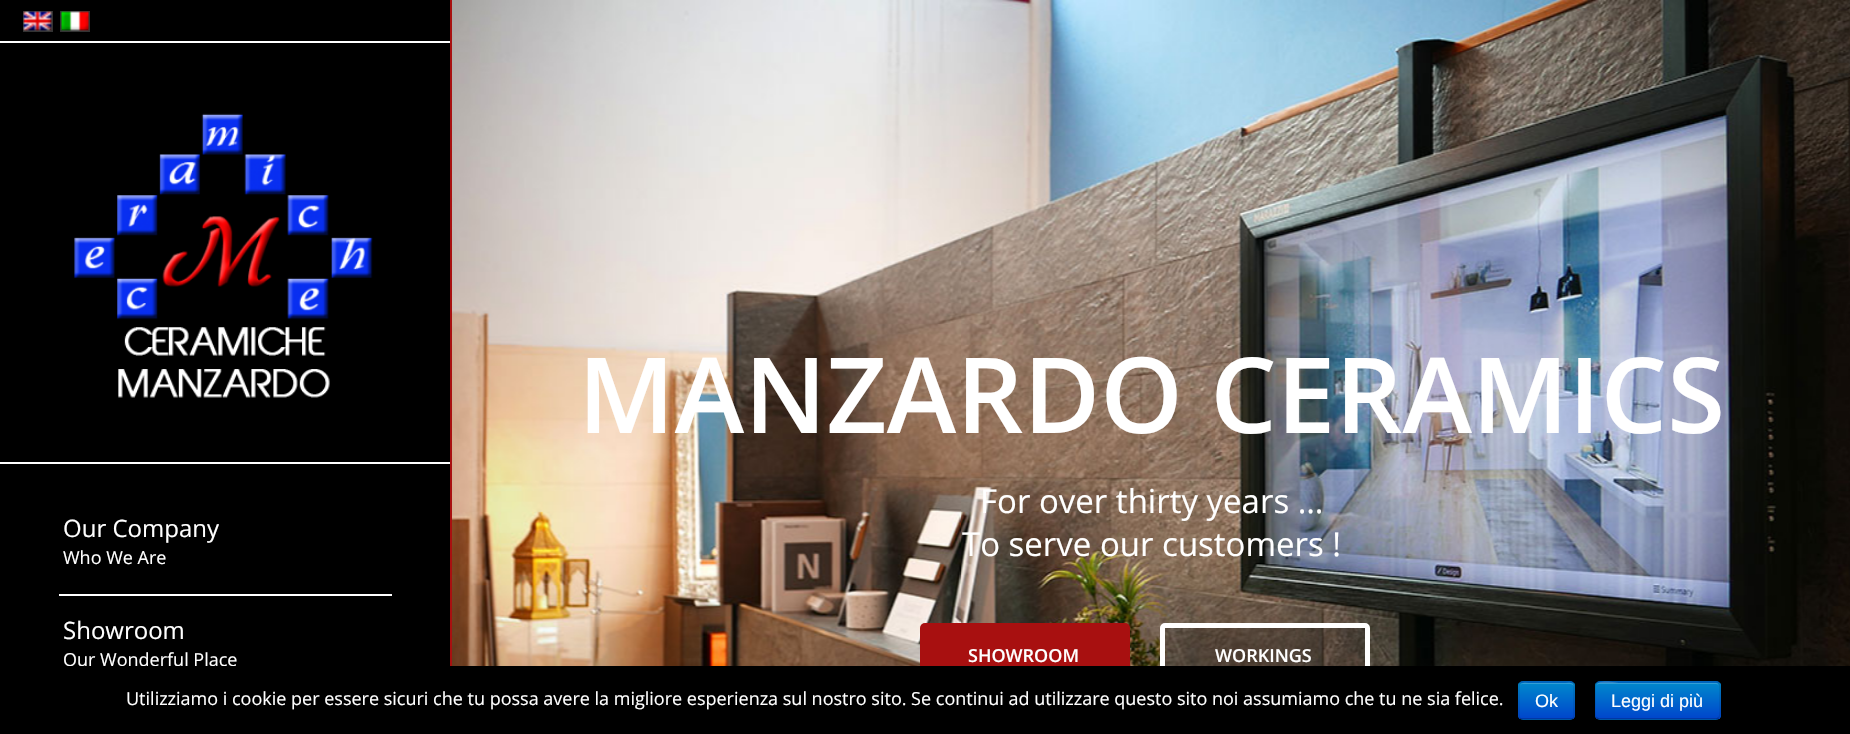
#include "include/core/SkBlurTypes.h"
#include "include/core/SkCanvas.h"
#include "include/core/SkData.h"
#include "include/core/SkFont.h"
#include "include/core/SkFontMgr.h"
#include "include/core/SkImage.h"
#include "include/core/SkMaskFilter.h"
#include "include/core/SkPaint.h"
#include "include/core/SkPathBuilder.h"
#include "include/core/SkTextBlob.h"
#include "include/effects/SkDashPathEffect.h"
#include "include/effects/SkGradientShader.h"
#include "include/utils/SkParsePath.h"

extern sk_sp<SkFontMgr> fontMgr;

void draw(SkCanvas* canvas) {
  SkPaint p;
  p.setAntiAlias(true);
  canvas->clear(SK_ColorBLACK);
  p.setColor(SK_ColorWHITE);
  canvas->drawRect(SkRect::MakeLTRB(0, 41, 450, 43), p);
  p.setStyle(SkPaint::kStroke_Style);
  p.setStrokeWidth(2);
  p.setColor(SkColorSetRGB(51, 51, 51));
  canvas->drawRect(SkRect::MakeLTRB(24, 12, 52, 31), p);
  canvas->drawImageRect(SkImages::DeferredFromEncodedData(SkData::MakeFromFileName("images/1.png")), SkRect::MakeLTRB(23, 11, 52, 31), SkSamplingOptions());
  canvas->drawRect(SkRect::MakeLTRB(61, 12, 89, 31), p);
  canvas->drawImageRect(SkImages::DeferredFromEncodedData(SkData::MakeFromFileName("images/2.png")), SkRect::MakeLTRB(61, 11, 89, 31), SkSamplingOptions());
  p.setStyle(SkPaint::kFill_Style);
  p.setColor(SK_ColorWHITE);
  canvas->drawRect(SkRect::MakeLTRB(0, 462, 450, 464), p);
  canvas->drawImageRect(SkImages::DeferredFromEncodedData(SkData::MakeFromFileName("images/3.png")), SkRect::MakeLTRB(74, 113, 373, 398), SkSamplingOptions());
  canvas->drawRect(SkRect::MakeLTRB(59, 594, 392, 596), p);
  p.setColor(SkColorSetRGB(168, 16, 16));
  canvas->drawRect(SkRect::MakeLTRB(450, 0, 452, 666), p);
  canvas->drawImageRect(SkImages::DeferredFromEncodedData(SkData::MakeFromFileName("images/4.png")), SkRect::MakeLTRB(452, 0, 1850, 666), SkSamplingOptions());
  canvas->drawRoundRect(SkRect::MakeLTRB(920, 623, 1130, 690), 5, 5, p);
  p.setColor(SkColorSetARGB(51, 0, 0, 0));
  canvas->drawRoundRect(SkRect::MakeLTRB(1162.5f, 625.5f, 1367.5f, 686.5f), 2.5f, 2.5f, p);
  p.setStyle(SkPaint::kStroke_Style);
  p.setStrokeWidth(5);
  p.setColor(SK_ColorWHITE);
  canvas->drawRoundRect(SkRect::MakeLTRB(1162.5f, 625.5f, 1367.5f, 686.5f), 2.5f, 2.5f, p);
  p.setStyle(SkPaint::kFill_Style);
  p.setColor(SkColorSetRGB(0, 109, 204));
  canvas->drawRoundRect(SkRect::MakeLTRB(1518, 681, 1575, 720), 5, 5, p);
  canvas->save();
  canvas->clipPath(SkPathBuilder().moveTo(1523, 681).lineTo(1570, 681).cubicTo(1573, 681, 1575, 683, 1575, 686).lineTo(1575, 715).cubicTo(1575, 718, 1573, 720, 1570, 720).lineTo(1523, 720).cubicTo(1520, 720, 1518, 718, 1518, 715).lineTo(1518, 686).cubicTo(1518, 683, 1520, 681, 1523, 681).close().detach(), true);
  {
    const SkColor colors[] = {SkColorSetRGB(0, 136, 204), SkColorSetRGB(0, 68, 204)};
    const float stops[] = {0, 1};
    const SkPoint ends[] = {{1547, 683}, {1547, 719}};
    p.setShader(SkGradientShader::MakeLinear(ends, colors, stops, 2, SkTileMode::kClamp));
    p.setAlpha(255);
  }
  canvas->drawRect(SkRect::MakeLTRB(1518, 683, 1575, 719), p);
  canvas->restore();
  p.setShader(nullptr);
  p.setColor(SkColorSetRGB(51, 159, 214));
  canvas->drawPath(SkPathBuilder().moveTo(1522, 684).lineTo(1570, 684).cubicTo(1572, 684, 1574, 685, 1574, 687).cubicTo(1574, 681, 1567, 683, 1563, 683).lineTo(1531, 683).cubicTo(1527, 683, 1520, 681, 1520, 687).cubicTo(1520, 685, 1521, 684, 1522, 684).close().detach(), p);
  p.setStyle(SkPaint::kStroke_Style);
  p.setStrokeWidth(1.5f);
  p.setColor(SkColorSetARGB(64, 0, 0, 0));
  canvas->drawPath(SkPathBuilder().moveTo(1573, 718).cubicTo(1572.5f, 719, 1571.5f, 719, 1570.5f, 719).lineTo(1522.5f, 719).cubicTo(1521.5f, 719, 1520.5f, 719, 1520, 718).detach(), p);
  p.setColor(SkColorSetARGB(26, 0, 0, 0));
  canvas->drawPath(SkPathBuilder().moveTo(1520, 718).cubicTo(1519, 717.5f, 1519, 716.5f, 1519, 715.5f).lineTo(1519, 685.5f).cubicTo(1519, 684.5f, 1519, 683.5f, 1520, 683).cubicTo(1520.5f, 682, 1521.5f, 682, 1522.5f, 682).lineTo(1570.5f, 682).cubicTo(1571.5f, 682, 1572.5f, 682, 1573, 683).cubicTo(1574, 683.5f, 1574, 684.5f, 1574, 685.5f).lineTo(1574, 715.5f).cubicTo(1574, 716.5f, 1574, 717.5f, 1573, 718).detach(), p);
  p.setStyle(SkPaint::kFill_Style);
  p.setColor(SkColorSetRGB(0, 109, 204));
  canvas->drawRoundRect(SkRect::MakeLTRB(1595, 681, 1721, 720), 5, 5, p);
  canvas->save();
  canvas->clipPath(SkPathBuilder().moveTo(1600, 681).lineTo(1716, 681).cubicTo(1719, 681, 1721, 683, 1721, 686).lineTo(1721, 715).cubicTo(1721, 718, 1719, 720, 1716, 720).lineTo(1600, 720).cubicTo(1597, 720, 1595, 718, 1595, 715).lineTo(1595, 686).cubicTo(1595, 683, 1597, 681, 1600, 681).close().detach(), true);
  {
    const SkColor colors[] = {SkColorSetRGB(0, 136, 204), SkColorSetRGB(0, 68, 204)};
    const float stops[] = {0, 1};
    const SkPoint ends[] = {{1658, 683}, {1658, 719}};
    p.setShader(SkGradientShader::MakeLinear(ends, colors, stops, 2, SkTileMode::kClamp));
    p.setAlpha(255);
  }
  canvas->drawRect(SkRect::MakeLTRB(1595, 683, 1721, 719), p);
  canvas->restore();
  p.setShader(nullptr);
  p.setColor(SkColorSetARGB(51, 255, 255, 255));
  canvas->drawPath(SkPathBuilder().moveTo(1599, 684).lineTo(1716, 684).cubicTo(1718, 684, 1719, 685, 1719, 687).cubicTo(1719, 685, 1718, 683, 1716, 683).lineTo(1618, 683).cubicTo(1618, 683, 1596, 678, 1596, 687).cubicTo(1596, 685, 1597, 684, 1599, 684).close().detach(), p);
  p.setStyle(SkPaint::kStroke_Style);
  p.setColor(SkColorSetARGB(64, 0, 0, 0));
  canvas->drawPath(SkPathBuilder().moveTo(1718.5f, 718).lineTo(1716.5f, 719).lineTo(1618.5f, 719).lineTo(1599, 719).lineTo(1596.5f, 718).detach(), p);
  p.setColor(SkColorSetARGB(26, 0, 0, 0));
  canvas->drawPath(SkPathBuilder().moveTo(1596.5f, 718).cubicTo(1594, 715.5f, 1595, 708, 1595, 705.5f).lineTo(1595, 690.5f).cubicTo(1595, 687.5f, 1594.5f, 682, 1599, 682).lineTo(1716, 682).cubicTo(1720.5f, 682, 1720, 687.5f, 1720, 690.5f).lineTo(1720, 705.5f).cubicTo(1720, 708, 1721, 715.5f, 1718.5f, 718).detach(), p);
  SkFont font1(fontMgr->matchFamilyStyle("Open Sans", SkFontStyle::Normal()), 24);
  font1.setSubpixel(true);
  p.setStyle(SkPaint::kFill_Style);
  p.setColor(SK_ColorWHITE);
  canvas->drawString("Our Company", 63, 537, font1, p);
  SkFont font2(fontMgr->matchFamilyStyle("Open Sans", SkFontStyle::Normal()), 18);
  font2.setSubpixel(true);
  canvas->drawString("Who We Are", 63, 564, font2, p);
  canvas->drawString("Showroom", 63, 639, font1, p);
  canvas->drawString("Our Wonderful Place", 63, 666, font2, p);
  SkFont font3(fontMgr->matchFamilyStyle("Open Sans", SkFontStyle(600, SkFontStyle::kNormal_Width, SkFontStyle::kUpright_Slant)), 105);
  font3.setSubpixel(true);
  canvas->drawString("MANZARDO CERAMICS", 578, 433, font3, p);
  SkFont font4(fontMgr->matchFamilyStyle("Open Sans", SkFontStyle::Normal()), 33);
  font4.setSubpixel(true);
  canvas->drawString("For over thirty years …", 980, 513, font4, p);
  canvas->drawString("To serve our customers !", 962, 556, font4, p);
  SkFont font5(fontMgr->matchFamilyStyle("Open Sans", SkFontStyle(600, SkFontStyle::kNormal_Width, SkFontStyle::kUpright_Slant)), 18);
  font5.setSubpixel(true);
  canvas->drawString("SHOWROOM", 968, 662, font5, p);
  canvas->drawString("WORKINGS", 1215, 662, font5, p);
  p.setColor(SK_ColorBLACK);
  canvas->drawRect(SkRect::MakeLTRB(68, 666, 1370, 690), p);
  p.setColor(SK_ColorWHITE);
  canvas->drawString("Utilizziamo i cookie per essere sicuri che tu possa avere la migliore esperienza sul nostro sito. Se continui ad utilizzare questo sito noi assumiamo che tu ne sia felice.", 126, 705, font2, p);
  SkFont font6(fontMgr->matchFamilyStyle("Liberation Sans", SkFontStyle::Normal()), 18);
  font6.setSubpixel(true);
  canvas->drawString("Ok", 1535, 707, font6, p);
  canvas->drawString("Leggi di più", 1611, 707, font6, p);
}
